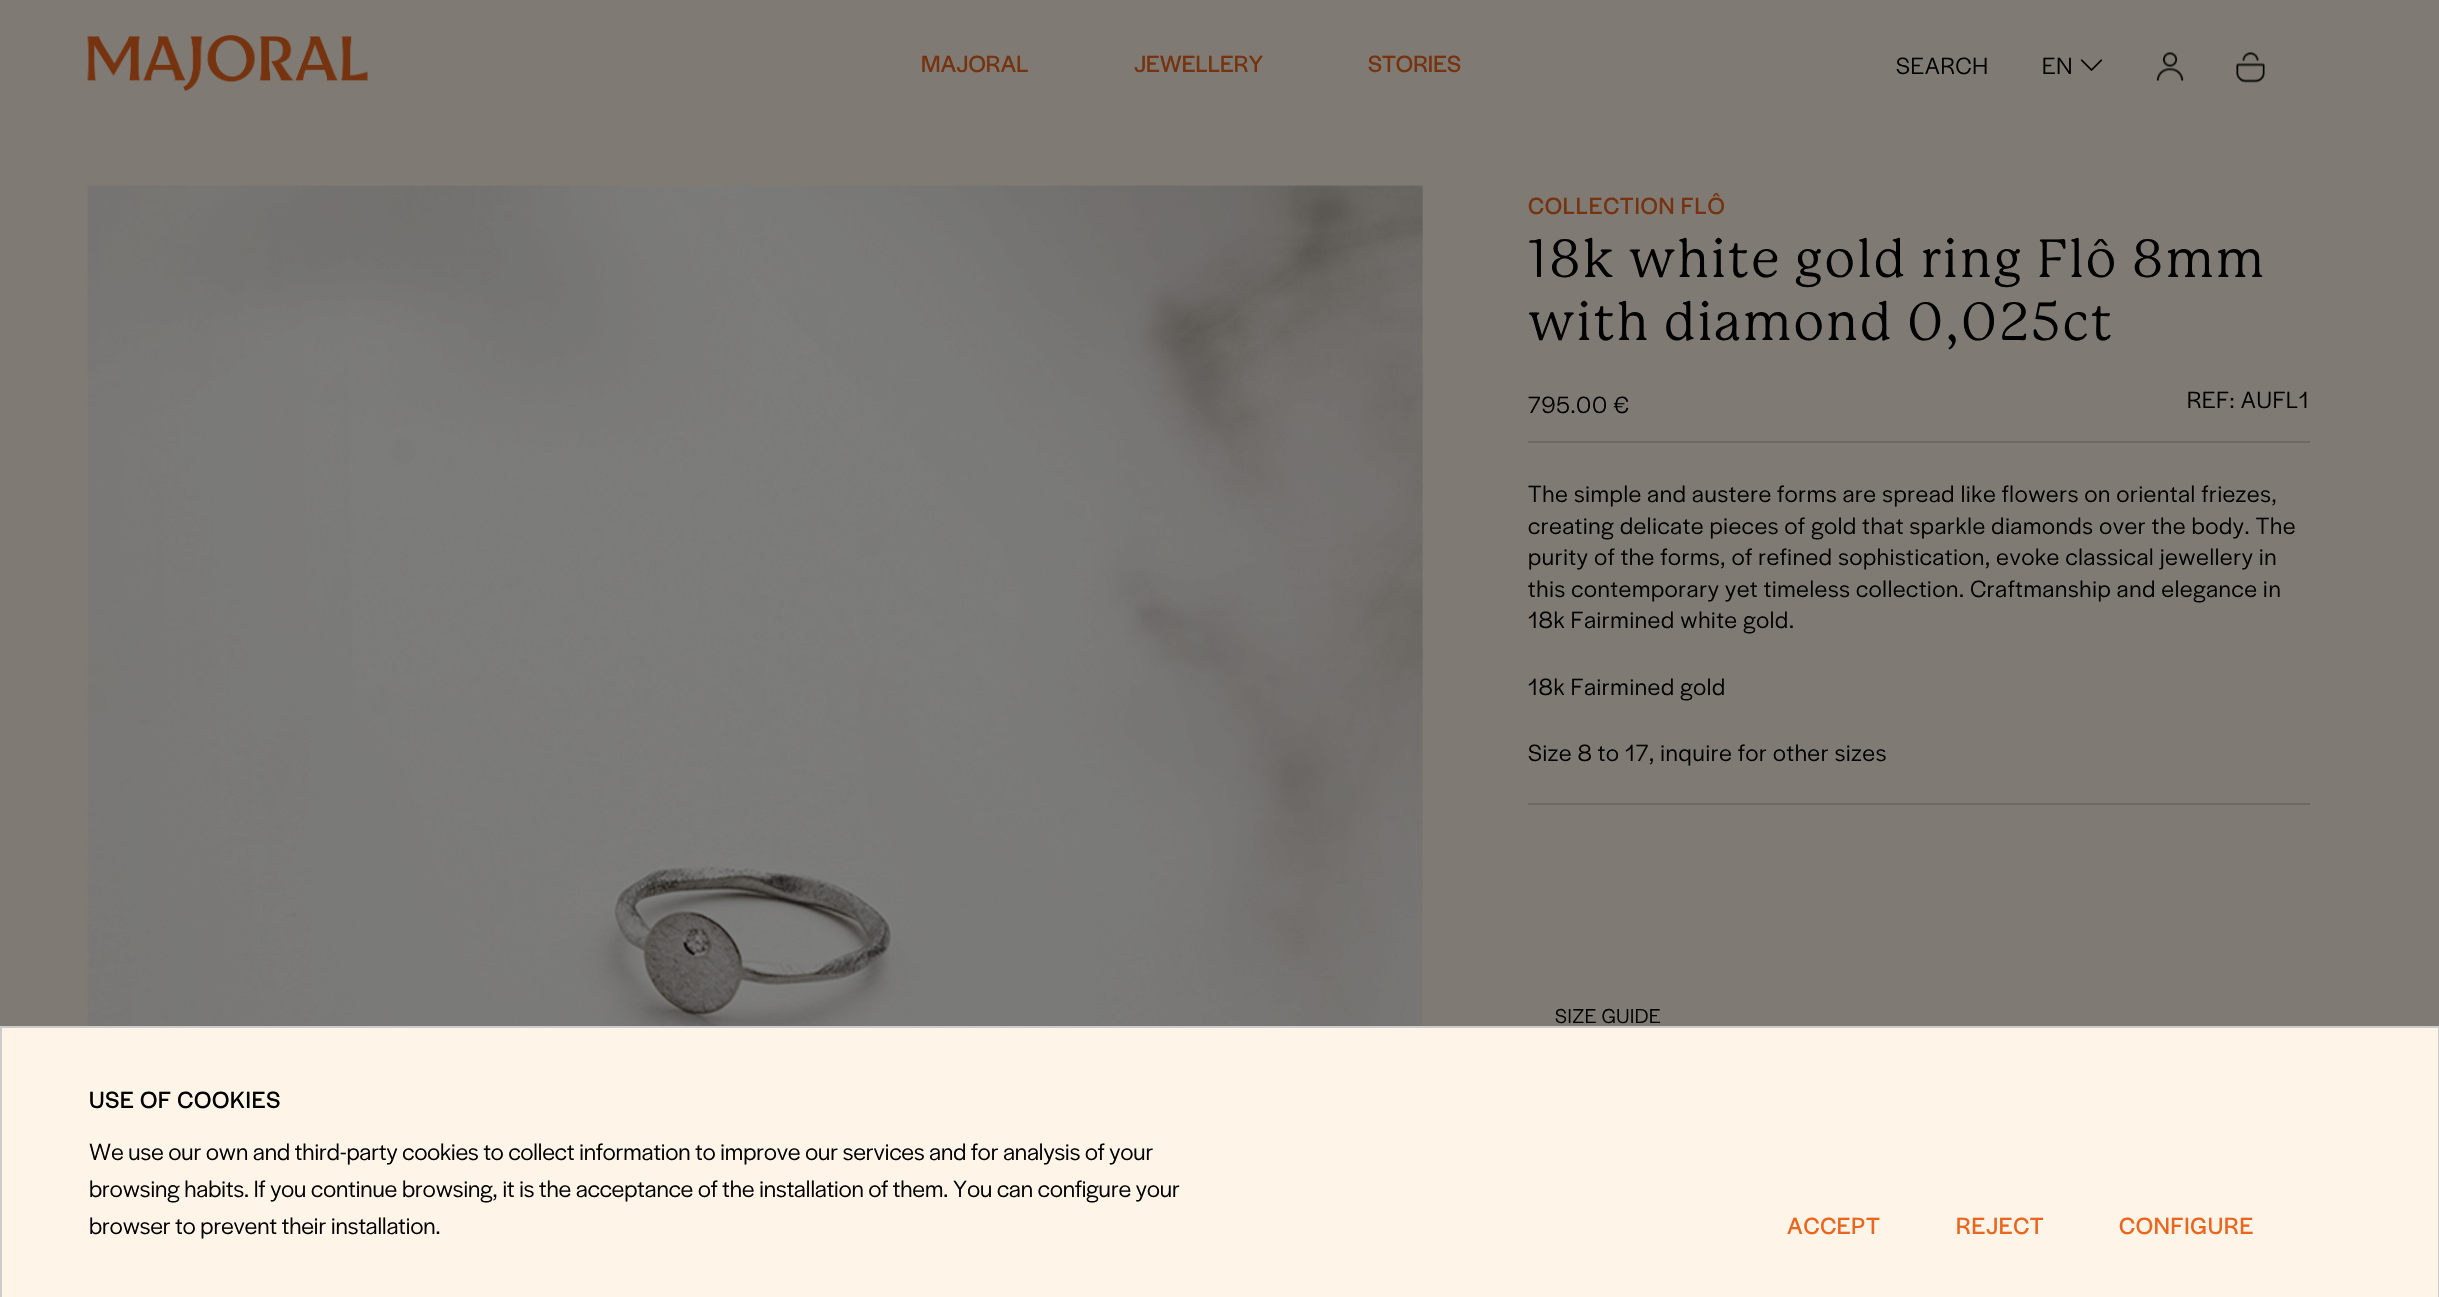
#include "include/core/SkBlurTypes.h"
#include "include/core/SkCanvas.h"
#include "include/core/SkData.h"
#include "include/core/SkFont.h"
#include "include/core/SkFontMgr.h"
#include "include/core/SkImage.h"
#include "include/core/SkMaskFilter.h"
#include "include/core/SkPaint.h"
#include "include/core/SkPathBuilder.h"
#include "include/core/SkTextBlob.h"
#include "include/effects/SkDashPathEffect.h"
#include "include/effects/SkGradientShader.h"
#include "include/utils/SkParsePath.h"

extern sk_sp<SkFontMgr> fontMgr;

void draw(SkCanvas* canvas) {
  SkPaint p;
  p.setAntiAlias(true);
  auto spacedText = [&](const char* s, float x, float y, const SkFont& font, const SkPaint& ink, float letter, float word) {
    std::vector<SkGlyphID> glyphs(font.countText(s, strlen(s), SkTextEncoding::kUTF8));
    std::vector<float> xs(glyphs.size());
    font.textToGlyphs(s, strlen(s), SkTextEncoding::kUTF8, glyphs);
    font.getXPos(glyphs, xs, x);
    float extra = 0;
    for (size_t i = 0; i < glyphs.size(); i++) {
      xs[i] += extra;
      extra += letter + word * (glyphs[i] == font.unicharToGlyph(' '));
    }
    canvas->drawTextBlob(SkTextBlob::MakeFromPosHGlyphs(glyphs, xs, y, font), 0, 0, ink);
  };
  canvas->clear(SkColorSetRGB(127, 123, 116));
  canvas->drawImageRect(SkImages::DeferredFromEncodedData(SkData::MakeFromFileName("images/1.png")), SkRect::MakeLTRB(87, 35, 368, 91), SkSamplingOptions());
  canvas->drawImageRect(SkImages::DeferredFromEncodedData(SkData::MakeFromFileName("images/2.png")), SkRect::MakeLTRB(2080, 59, 2103, 71), SkSamplingOptions());
  canvas->drawImageRect(SkImages::DeferredFromEncodedData(SkData::MakeFromFileName("images/3.png")), SkRect::MakeLTRB(2156, 52, 2184, 81), SkSamplingOptions());
  canvas->drawImageRect(SkImages::DeferredFromEncodedData(SkData::MakeFromFileName("images/4.png")), SkRect::MakeLTRB(2236, 52, 2265, 83), SkSamplingOptions());
  canvas->drawImageRect(SkImages::DeferredFromEncodedData(SkData::MakeFromFileName("images/5.png")), SkRect::MakeLTRB(87, 185, 1423, 1026), SkSamplingOptions());
  p.setColor(SkColorSetRGB(109, 106, 102));
  canvas->drawRect(SkRect::MakeLTRB(1528, 441, 2310, 443), p);
  canvas->drawRect(SkRect::MakeLTRB(1528, 803, 2310, 805), p);
  p.setColor(SkColorSetRGB(254, 245, 232));
  canvas->drawRect(SkRect::MakeLTRB(1, 1027, 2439, 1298), p);
  p.setStyle(SkPaint::kStroke_Style);
  p.setStrokeWidth(2);
  p.setColor(SkColorSetRGB(204, 204, 204));
  canvas->drawRect(SkRect::MakeLTRB(1, 1027, 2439, 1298), p);
  SkFont font1(fontMgr->matchFamilyStyle("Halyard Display", SkFontStyle::Normal()), 24.5f);
  font1.setSubpixel(true);
  p.setStyle(SkPaint::kFill_Style);
  p.setColor(SkColorSetRGB(117, 51, 16));
  canvas->drawString("MAJORAL", 921, 72, font1, p);
  canvas->drawString("JEWELLERY", 1134, 72, font1, p);
  canvas->drawString("STORIES", 1368, 72, font1, p);
  SkFont font2(fontMgr->matchFamilyStyle("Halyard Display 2", SkFontStyle::Normal()), 24.5f);
  font2.setSubpixel(true);
  p.setColor(SK_ColorBLACK);
  spacedText("SEARCH", 1896, 74, font2, p, 0.73f, 0);
  spacedText("EN", 2042, 74, font2, p, 0.73f, 0);
  p.setColor(SkColorSetRGB(117, 51, 16));
  spacedText("COLLECTION FLÔ", 1528, 214, font1, p, 0.73f, 0);
  SkFont font3(fontMgr->matchFamilyStyle("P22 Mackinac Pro", SkFontStyle::Normal()), 52.5f);
  font3.setSubpixel(true);
  p.setColor(SK_ColorBLACK);
  spacedText("18k white gold ring Flô 8mm", 1528, 277, font3, p, 1.6f, 0);
  spacedText("with diamond 0,025ct", 1528, 340, font3, p, 1.6f, 0);
  spacedText("795.00 €", 1528, 413, font2, p, 0.73f, 0);
  spacedText("REF: AUFL1", 2187, 408, font2, p, 0.73f, 0);
  spacedText("The simple and austere forms are spread like flowers on oriental friezes,", 1528, 502, font2, p, 0.73f, 0);
  spacedText("creating delicate pieces of gold that sparkle diamonds over the body. The", 1528, 534, font2, p, 0.73f, 0);
  spacedText("purity of the forms, of refined sophistication, evoke classical jewellery in", 1528, 565, font2, p, 0.73f, 0);
  spacedText("this contemporary yet timeless collection. Craftmanship and elegance in", 1528, 597, font2, p, 0.73f, 0);
  spacedText("18k Fairmined white gold.", 1528, 628, font2, p, 0.73f, 0);
  spacedText("18k Fairmined gold", 1528, 695, font2, p, 0.73f, 0);
  spacedText("Size 8 to 17, inquire for other sizes", 1528, 761, font2, p, 0.73f, 0);
  SkFont font4(fontMgr->matchFamilyStyle("Halyard Display 2", SkFontStyle::Normal()), 21);
  font4.setSubpixel(true);
  spacedText("SIZE GUIDE", 1555, 1023, font4, p, 0.6f, 0);
  spacedText("USE OF COOKIES", 89, 1108, font1, p, 0.73f, 0);
  canvas->drawString("We use our own and third-party cookies to collect information to improve our services and for analysis of your", 89, 1160, font2, p);
  canvas->drawString("browsing habits. If you continue browsing, it is the acceptance of the installation of them. You can configure your", 89, 1197, font2, p);
  canvas->drawString("browser to prevent their installation.", 89, 1234, font2, p);
  p.setColor(SkColorSetRGB(234, 102, 31));
  spacedText("ACCEPT", 1787, 1234, font1, p, 0.73f, 0);
  spacedText("REJECT", 1956, 1234, font1, p, 0.73f, 0);
  spacedText("CONFIGURE", 2119, 1234, font1, p, 0.73f, 0);
}
